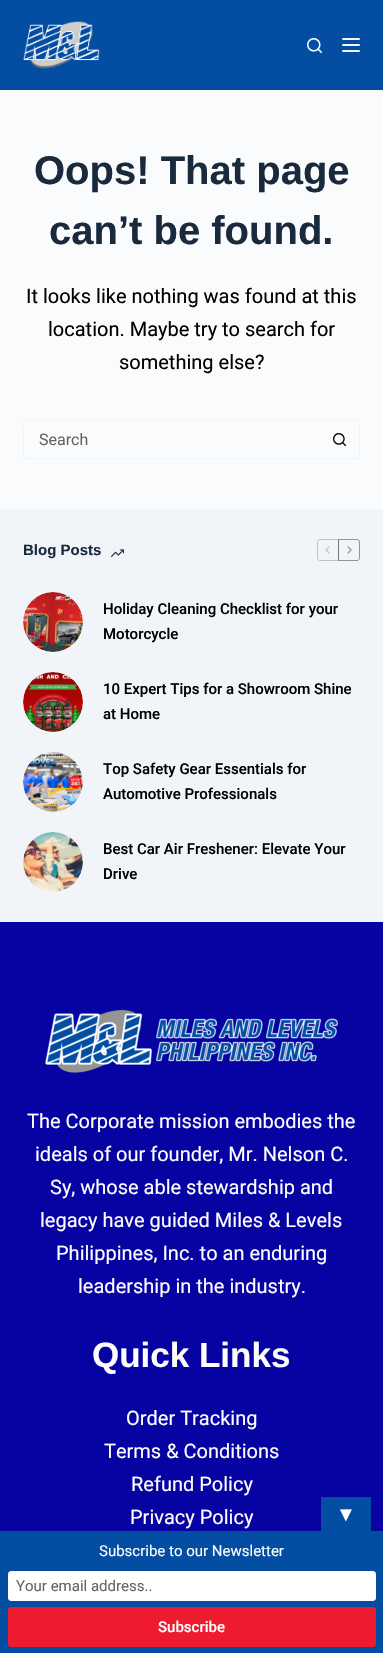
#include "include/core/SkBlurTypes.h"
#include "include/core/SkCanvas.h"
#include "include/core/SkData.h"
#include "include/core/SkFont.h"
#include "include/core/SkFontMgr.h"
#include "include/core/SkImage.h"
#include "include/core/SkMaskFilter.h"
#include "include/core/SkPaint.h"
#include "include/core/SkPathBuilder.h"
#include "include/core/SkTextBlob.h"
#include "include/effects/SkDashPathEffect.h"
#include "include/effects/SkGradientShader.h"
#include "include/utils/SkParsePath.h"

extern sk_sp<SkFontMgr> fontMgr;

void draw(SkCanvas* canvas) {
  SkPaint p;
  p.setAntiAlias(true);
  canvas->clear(SkColorSetRGB(250, 251, 252));
  p.setColor(SkColorSetRGB(3, 78, 162));
  canvas->drawRect(SkRect::MakeLTRB(0, 0, 383, 90), p);
  canvas->drawImageRect(SkImages::DeferredFromEncodedData(SkData::MakeFromFileName("images/1.png")), SkRect::MakeLTRB(23, 21, 100, 69), SkSamplingOptions());
  canvas->drawImageRect(SkImages::DeferredFromEncodedData(SkData::MakeFromFileName("images/2.png")), SkRect::MakeLTRB(307, 38, 322, 53), SkSamplingOptions());
  p.setColor(SkColorSetRGB(241, 245, 249));
  canvas->drawRoundRect(SkRect::MakeLTRB(342, 38, 360, 40), 1, 1, p);
  canvas->drawRoundRect(SkRect::MakeLTRB(342, 44, 360, 46), 1, 1, p);
  canvas->drawRoundRect(SkRect::MakeLTRB(342, 50, 360, 52), 1, 1, p);
  canvas->drawPath(SkPathBuilder(SkPathFillType::kEvenOdd).moveTo(26, 419).lineTo(320, 419).lineTo(320, 459).lineTo(26, 459).cubicTo(24, 459, 23, 458, 23, 456).lineTo(23, 422).cubicTo(23, 420, 24, 419, 26, 419).close().moveTo(26, 420).lineTo(320, 420).lineTo(320, 458).lineTo(25, 458).lineTo(24, 456).lineTo(24, 428).cubicTo(24, 427, 23, 422, 25, 420).close().detach(), p);
  canvas->drawPath(SkPathBuilder(SkPathFillType::kEvenOdd).moveTo(320, 419).lineTo(357, 419).cubicTo(359, 419, 360, 420, 360, 422).lineTo(360, 456).cubicTo(360, 458, 359, 459, 357, 459).lineTo(320, 459).close().moveTo(320, 420).lineTo(357, 420).cubicTo(358, 420, 359, 421, 359, 422).lineTo(359, 456).cubicTo(359, 457, 358, 458, 357, 458).lineTo(320, 458).close().detach(), p);
  canvas->drawImageRect(SkImages::DeferredFromEncodedData(SkData::MakeFromFileName("images/3.png")), SkRect::MakeLTRB(333, 433, 346, 446), SkSamplingOptions());
  canvas->drawRect(SkRect::MakeLTRB(0, 509, 383, 922), p);
  canvas->drawImageRect(SkImages::DeferredFromEncodedData(SkData::MakeFromFileName("images/4.png")), SkRect::MakeLTRB(111, 549, 124, 557), SkSamplingOptions());
  p.setStyle(SkPaint::kStroke_Style);
  p.setStrokeWidth(1);
  p.setColor(SkColorSetRGB(193, 196, 199));
  canvas->drawPath(SkPathBuilder().moveTo(320, 539.5f).lineTo(338.5f, 539.5f).lineTo(338.5f, 560.5f).lineTo(320, 560.5f).cubicTo(318.5f, 560.5f, 317.5f, 559.5f, 317.5f, 558).lineTo(317.5f, 542).cubicTo(317.5f, 540.5f, 318.5f, 539.5f, 320, 539.5f).close().detach(), p);
  canvas->drawImageRect(SkImages::DeferredFromEncodedData(SkData::MakeFromFileName("images/5.png")), SkRect::MakeLTRB(325, 546, 330, 554), SkSamplingOptions());
  p.setColor(SkColorSetARGB(102, 0, 0, 0));
  canvas->drawPath(SkPathBuilder().moveTo(338.5f, 539.5f).lineTo(357, 539.5f).cubicTo(358.5f, 539.5f, 359.5f, 540.5f, 359.5f, 542).lineTo(359.5f, 558).cubicTo(359.5f, 559.5f, 358.5f, 560.5f, 357, 560.5f).lineTo(338.5f, 560.5f).close().detach(), p);
  canvas->drawImageRect(SkImages::DeferredFromEncodedData(SkData::MakeFromFileName("images/6.png")), SkRect::MakeLTRB(347, 546, 352, 554), SkSamplingOptions());
  canvas->drawImageRect(SkImages::DeferredFromEncodedData(SkData::MakeFromFileName("images/7.png")), SkRect::MakeLTRB(23, 592, 83, 652), SkSamplingOptions());
  canvas->drawImageRect(SkImages::DeferredFromEncodedData(SkData::MakeFromFileName("images/8.png")), SkRect::MakeLTRB(23, 672, 83, 732), SkSamplingOptions());
  canvas->drawImageRect(SkImages::DeferredFromEncodedData(SkData::MakeFromFileName("images/9.png")), SkRect::MakeLTRB(23, 752, 83, 812), SkSamplingOptions());
  canvas->drawImageRect(SkImages::DeferredFromEncodedData(SkData::MakeFromFileName("images/10.png")), SkRect::MakeLTRB(23, 832, 83, 892), SkSamplingOptions());
  p.setStyle(SkPaint::kFill_Style);
  p.setColor(SkColorSetRGB(7, 3, 162));
  canvas->drawRect(SkRect::MakeLTRB(0, 922, 383, 1531), p);
  canvas->drawImageRect(SkImages::DeferredFromEncodedData(SkData::MakeFromFileName("images/11.png")), SkRect::MakeLTRB(45, 1009, 339, 1073), SkSamplingOptions());
  p.setColor(SkColorSetRGB(3, 78, 162));
  canvas->drawRect(SkRect::MakeLTRB(321, 1497, 371, 1531), p);
  canvas->drawRect(SkRect::MakeLTRB(0, 1531, 383, 1653), p);
  p.setColor(SK_ColorWHITE);
  canvas->drawRoundRect(SkRect::MakeLTRB(8.5f, 1571.5f, 375.5f, 1600.5f), 2.5f, 2.5f, p);
  p.setStyle(SkPaint::kStroke_Style);
  canvas->drawRoundRect(SkRect::MakeLTRB(8.5f, 1571.5f, 375.5f, 1600.5f), 2.5f, 2.5f, p);
  p.setStyle(SkPaint::kFill_Style);
  p.setColor(SkColorSetRGB(238, 27, 46));
  canvas->drawRoundRect(SkRect::MakeLTRB(8.5f, 1607.5f, 375.5f, 1646.5f), 2.5f, 2.5f, p);
  p.setStyle(SkPaint::kStroke_Style);
  canvas->drawRoundRect(SkRect::MakeLTRB(8.5f, 1607.5f, 375.5f, 1646.5f), 2.5f, 2.5f, p);
  SkFont font1(fontMgr->matchFamilyStyle("Liberation Sans", SkFontStyle::Bold()), 40);
  font1.setSubpixel(true);
  p.setStyle(SkPaint::kFill_Style);
  p.setColor(SkColorSetRGB(25, 42, 61));
  canvas->drawString("Oops! That page", 34, 184, font1, p);
  canvas->drawString("can’t be found.", 49, 244, font1, p);
  SkFont font2(fontMgr->matchFamilyStyle("Roboto", SkFontStyle::Normal()), 20);
  font2.setSubpixel(true);
  p.setColor(SK_ColorBLACK);
  canvas->drawString("It looks like nothing was found at this", 26, 303, font2, p);
  canvas->drawString("location. Maybe try to search for", 48, 336, font2, p);
  canvas->drawString("something else?", 119, 369, font2, p);
  SkFont font3(fontMgr->matchFamilyStyle("Roboto", SkFontStyle::Normal()), 16);
  font3.setSubpixel(true);
  p.setColor(SkColorSetRGB(100, 100, 101));
  canvas->drawString("Search", 39, 445, font3, p);
  SkFont font4(fontMgr->matchFamilyStyle("Liberation Sans", SkFontStyle::Bold()), 15);
  font4.setSubpixel(true);
  p.setColor(SkColorSetRGB(25, 42, 61));
  canvas->drawString("Blog Posts", 23, 555, font4, p);
  SkFont font5(fontMgr->matchFamilyStyle("Roboto", SkFontStyle(500, SkFontStyle::kNormal_Width, SkFontStyle::kUpright_Slant)), 15);
  font5.setSubpixel(true);
  p.setColor(SK_ColorBLACK);
  canvas->drawString("Holiday Cleaning Checklist for your", 103, 614, font5, p);
  canvas->drawString("Motorcycle", 103, 639, font5, p);
  canvas->drawString("10 Expert Tips for a Showroom Shine", 103, 694, font5, p);
  canvas->drawString("at Home", 103, 719, font5, p);
  canvas->drawString("Top Safety Gear Essentials for", 103, 774, font5, p);
  canvas->drawString("Automotive Professionals", 103, 799, font5, p);
  canvas->drawString("Best Car Air Freshener: Elevate Your", 103, 854, font5, p);
  canvas->drawString("Drive", 103, 879, font5, p);
  p.setColor(SkColorSetRGB(254, 254, 254));
  canvas->drawString("The Corporate mission embodies the", 27, 1128, font2, p);
  canvas->drawString("ideals of our founder, Mr. Nelson C.", 35, 1161, font2, p);
  canvas->drawString("Sy, whose able stewardship and", 50, 1194, font2, p);
  canvas->drawString("legacy have guided Miles & Levels", 40, 1227, font2, p);
  canvas->drawString("Philippines, Inc. to an enduring", 56, 1260, font2, p);
  canvas->drawString("leadership in the industry.", 78, 1293, font2, p);
  SkFont font6(fontMgr->matchFamilyStyle("Liberation Sans", SkFontStyle::Bold()), 35);
  font6.setSubpixel(true);
  canvas->drawString("Quick Links", 92, 1367, font6, p);
  canvas->drawString("Order Tracking", 126, 1425, font2, p);
  canvas->drawString("Terms & Conditions", 104, 1458, font2, p);
  canvas->drawString("Refund Policy", 131, 1491, font2, p);
  canvas->drawString("Privacy Policy", 130, 1524, font2, p);
  SkFont font7(fontMgr->matchFamilyStyle("Liberation Sans", SkFontStyle::Normal()), 20);
  font7.setSubpixel(true);
  canvas->drawString("▼", 336, 1521, font7, p);
  SkFont font8(fontMgr->matchFamilyStyle("Roboto", SkFontStyle::Normal()), 15);
  font8.setSubpixel(true);
  canvas->drawString("Subscribe to our Newsletter", 99, 1556, font8, p);
  p.setColor(SkColorSetRGB(100, 100, 101));
  canvas->drawString("Your email address..", 16, 1591, font8, p);
  p.setColor(SkColorSetRGB(254, 254, 254));
  canvas->drawString("Subscribe", 158, 1632, font5, p);
}
